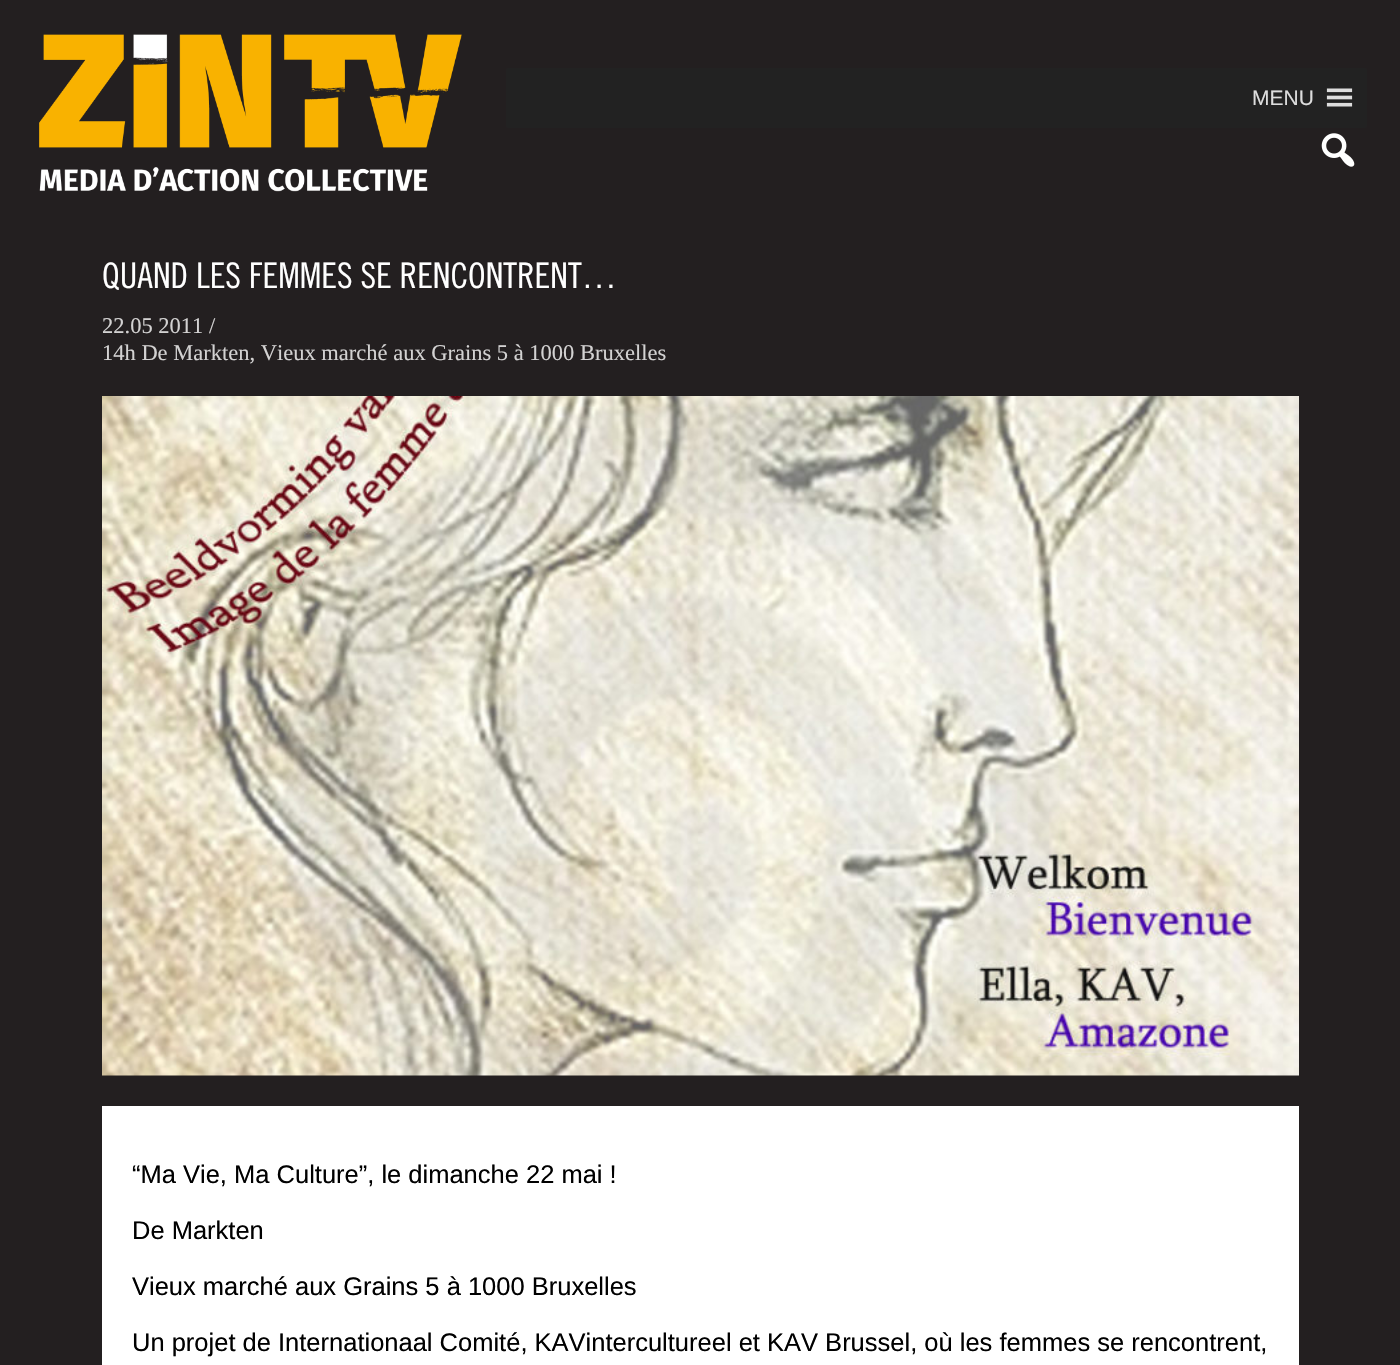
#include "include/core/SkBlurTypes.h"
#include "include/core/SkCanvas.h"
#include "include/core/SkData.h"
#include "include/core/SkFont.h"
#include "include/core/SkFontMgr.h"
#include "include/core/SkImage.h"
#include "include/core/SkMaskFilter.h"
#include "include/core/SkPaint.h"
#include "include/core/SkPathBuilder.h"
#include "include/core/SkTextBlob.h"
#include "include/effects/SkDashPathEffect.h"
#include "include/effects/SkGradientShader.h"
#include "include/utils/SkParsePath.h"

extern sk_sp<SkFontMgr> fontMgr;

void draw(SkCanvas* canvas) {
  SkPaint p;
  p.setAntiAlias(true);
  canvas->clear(SkColorSetRGB(35, 31, 32));
  canvas->drawImageRect(SkImages::DeferredFromEncodedData(SkData::MakeFromFileName("images/1.png")), SkRect::MakeLTRB(39, 34, 462, 192), SkSamplingOptions());
  p.setColor(SkColorSetRGB(34, 34, 34));
  canvas->drawRoundRect(SkRect::MakeLTRB(506, 68, 1367, 128), 3, 3, p);
  canvas->drawImageRect(SkImages::DeferredFromEncodedData(SkData::MakeFromFileName("images/2.png")), SkRect::MakeLTRB(1326, 88, 1353, 107), SkSamplingOptions());
  canvas->drawImageRect(SkImages::DeferredFromEncodedData(SkData::MakeFromFileName("images/3.png")), SkRect::MakeLTRB(1321, 133, 1355, 167), SkSamplingOptions());
  canvas->drawImageRect(SkImages::DeferredFromEncodedData(SkData::MakeFromFileName("images/4.png")), SkRect::MakeLTRB(102, 396, 1299, 1076), SkSamplingOptions());
  p.setColor(SK_ColorWHITE);
  canvas->drawRect(SkRect::MakeLTRB(102, 1106, 1299, 1365), p);
  SkFont font1(fontMgr->matchFamilyStyle("Liberation Sans", SkFontStyle::Normal()), 21);
  font1.setSubpixel(true);
  p.setColor(SkColorSetRGB(221, 221, 221));
  canvas->drawString("MENU", 1252, 105, font1, p);
  SkFont font2(fontMgr->matchFamilyStyle("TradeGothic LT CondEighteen", SkFontStyle(500, SkFontStyle::kNormal_Width, SkFontStyle::kUpright_Slant)), 35.25f);
  font2.setSubpixel(true);
  p.setColor(SK_ColorWHITE);
  canvas->drawString("QUAND LES FEMMES SE RENCONTRENT…", 102, 288, font2, p);
  SkFont font3(fontMgr->matchFamilyStyle("Liberation Serif", SkFontStyle::Normal()), 22.5f);
  font3.setSubpixel(true);
  p.setColor(SkColorSetRGB(211, 210, 210));
  canvas->drawString("22.05 2011 /", 102, 333, font3, p);
  canvas->drawString("14h De Markten, Vieux marché aux Grains 5 à 1000 Bruxelles", 102, 360, font3, p);
  SkFont font4(fontMgr->matchFamilyStyle("Liberation Sans", SkFontStyle::Normal()), 25.5f);
  font4.setSubpixel(true);
  p.setColor(SK_ColorBLACK);
  canvas->drawString("“Ma Vie, Ma Culture”, le dimanche 22 mai !", 132, 1183, font4, p);
  canvas->drawString("De Markten", 132, 1239, font4, p);
  canvas->drawString("Vieux marché aux Grains 5 à 1000 Bruxelles", 132, 1295, font4, p);
  canvas->drawString("Un projet de Internationaal Comité, KAVintercultureel et KAV Brussel, où les femmes se rencontrent,", 132, 1351, font4, p);
}
